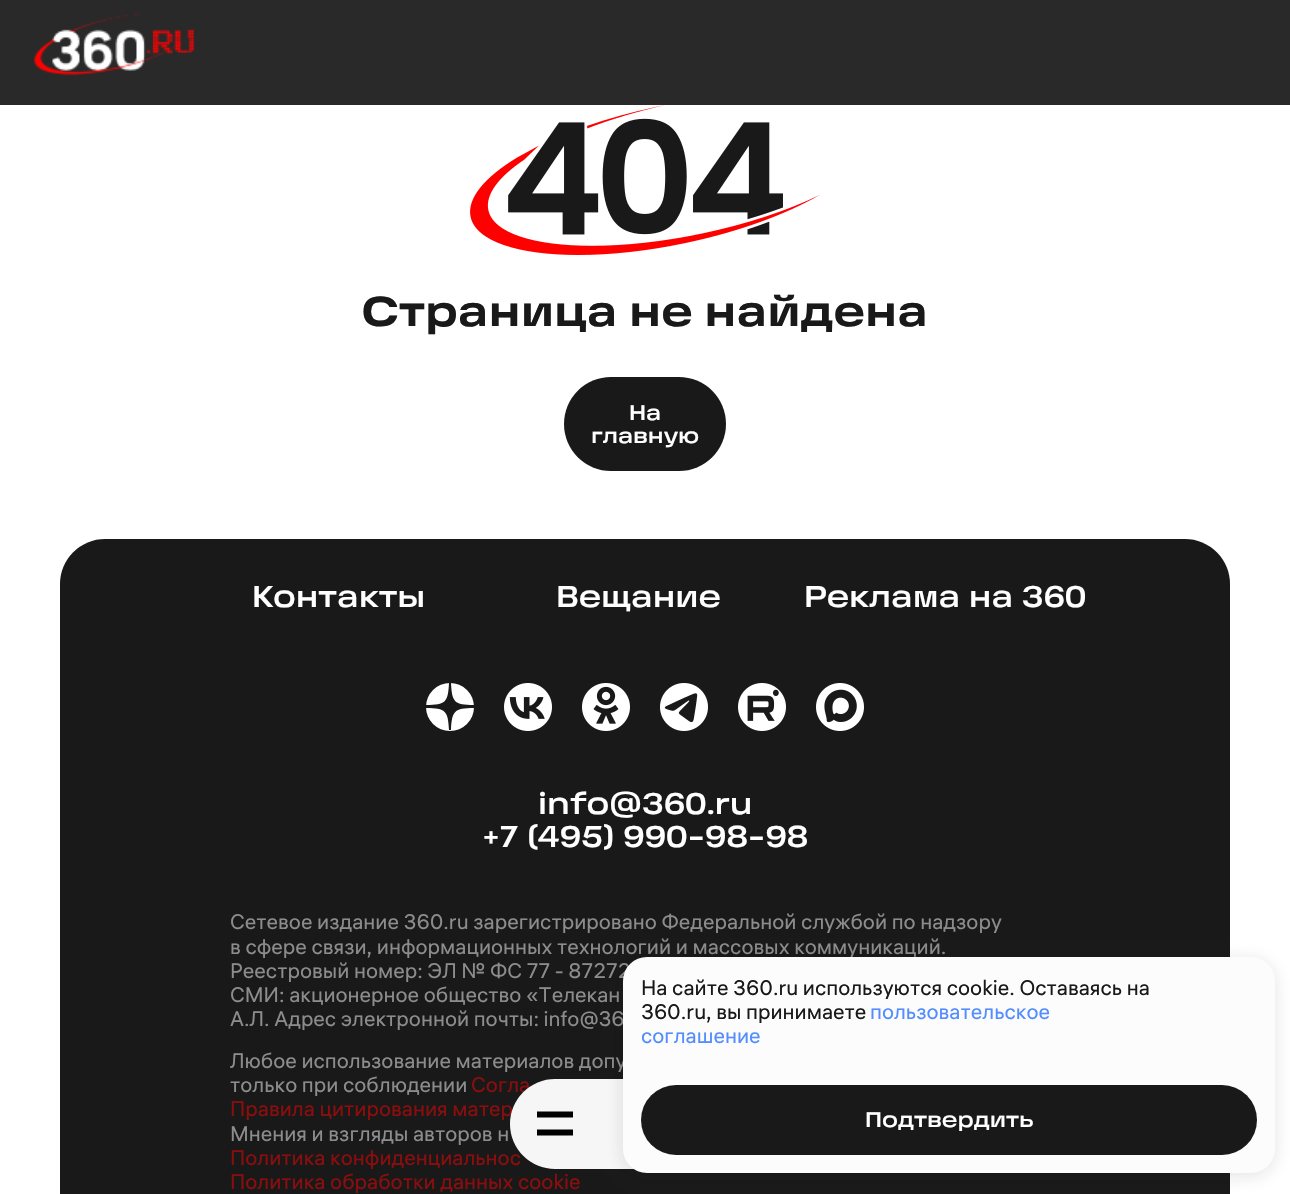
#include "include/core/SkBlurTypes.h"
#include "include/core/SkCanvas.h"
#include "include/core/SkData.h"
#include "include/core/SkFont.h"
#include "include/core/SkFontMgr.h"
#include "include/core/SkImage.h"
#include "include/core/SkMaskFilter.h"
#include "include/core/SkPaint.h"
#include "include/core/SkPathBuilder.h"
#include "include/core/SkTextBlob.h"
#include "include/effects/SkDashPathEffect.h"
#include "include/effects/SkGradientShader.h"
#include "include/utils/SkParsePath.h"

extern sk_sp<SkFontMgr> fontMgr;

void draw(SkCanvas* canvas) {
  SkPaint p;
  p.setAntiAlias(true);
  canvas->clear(SK_ColorWHITE);
  p.setColor(SkColorSetRGB(41, 41, 41));
  canvas->drawRect(SkRect::MakeLTRB(0, 0, 1290, 105), p);
  canvas->drawImageRect(SkImages::DeferredFromEncodedData(SkData::MakeFromFileName("images/1.png")), SkRect::MakeLTRB(34, 13, 195, 76), SkSamplingOptions());
  canvas->drawImageRect(SkImages::DeferredFromEncodedData(SkData::MakeFromFileName("images/2.png")), SkRect::MakeLTRB(470, 105, 820, 255), SkSamplingOptions());
  p.setColor(SkColorSetRGB(25, 25, 25));
  canvas->drawRoundRect(SkRect::MakeLTRB(564, 377, 726, 471), 47, 47, p);
  canvas->drawRoundRect(SkRect::MakeLTRB(60, 539, 1230, 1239), 45, 45, p);
  p.setColor(SK_ColorWHITE);
  canvas->drawCircle(450, 707, 24, p);
  p.setColor(SkColorSetRGB(25, 25, 25));
  canvas->drawPath(SkPathBuilder().moveTo(450, 683).lineTo(449, 683).cubicTo(448, 702, 446, 705, 426, 705).lineTo(426, 708).cubicTo(446, 708, 448, 711, 449, 730).lineTo(451, 730).cubicTo(452, 711, 454, 708, 474, 708).lineTo(474, 705).cubicTo(454, 705, 452, 702, 451, 683).close().detach(), p);
  canvas->drawImageRect(SkImages::DeferredFromEncodedData(SkData::MakeFromFileName("images/3.png")), SkRect::MakeLTRB(504, 683, 552, 731), SkSamplingOptions());
  canvas->drawImageRect(SkImages::DeferredFromEncodedData(SkData::MakeFromFileName("images/4.png")), SkRect::MakeLTRB(582, 683, 630, 731), SkSamplingOptions());
  canvas->drawImageRect(SkImages::DeferredFromEncodedData(SkData::MakeFromFileName("images/5.png")), SkRect::MakeLTRB(660, 683, 708, 731), SkSamplingOptions());
  canvas->drawImageRect(SkImages::DeferredFromEncodedData(SkData::MakeFromFileName("images/6.png")), SkRect::MakeLTRB(738, 683, 786, 731), SkSamplingOptions());
  canvas->drawImageRect(SkImages::DeferredFromEncodedData(SkData::MakeFromFileName("images/7.png")), SkRect::MakeLTRB(816, 683, 864, 731), SkSamplingOptions());
  SkFont font1(fontMgr->matchFamilyStyle("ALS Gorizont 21", SkFontStyle::Bold()), 42);
  font1.setSubpixel(true);
  canvas->drawString("Страница не найдена", 362, 326, font1, p);
  SkFont font2(fontMgr->matchFamilyStyle("ALS Gorizont 21", SkFontStyle(500, SkFontStyle::kNormal_Width, SkFontStyle::kUpright_Slant)), 21);
  font2.setSubpixel(true);
  p.setColor(SK_ColorWHITE);
  canvas->drawString("На", 629, 420, font2, p);
  canvas->drawString("главную", 591, 443, font2, p);
  SkFont font3(fontMgr->matchFamilyStyle("ALS Gorizont 21", SkFontStyle(500, SkFontStyle::kNormal_Width, SkFontStyle::kUpright_Slant)), 30);
  font3.setSubpixel(true);
  canvas->drawString("Контакты", 252, 607, font3, p);
  canvas->drawString("Вещание", 556, 607, font3, p);
  canvas->drawString("Реклама на 360", 804, 607, font3, p);
  canvas->drawString("info@360.ru", 538, 814, font3, p);
  canvas->drawString("+7 (495) 990-98-98", 482, 847, font3, p);
  SkFont font4(fontMgr->matchFamilyStyle("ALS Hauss", SkFontStyle::Normal()), 21);
  font4.setSubpixel(true);
  p.setColor(SkColorSetRGB(140, 140, 140));
  canvas->drawString("Сетевое издание 360.ru зарегистрировано Федеральной службой по надзору", 230, 929, font4, p);
  canvas->drawString("в сфере связи, информационных технологий и массовых коммуникаций.", 230, 954, font4, p);
  canvas->drawString("Реестровый номер: ЭЛ № ФС 77 - 87272", 230, 978, font4, p);
  canvas->drawString("СМИ: акционерное общество «Телекан", 230, 1002, font4, p);
  canvas->drawString("А.Л. Адрес электронной почты: info@36", 230, 1026, font4, p);
  canvas->drawString("Любое использование материалов допу", 230, 1068, font4, p);
  canvas->drawString("только при соблюдении", 230, 1092, font4, p);
  p.setColor(SkColorSetRGB(140, 13, 13));
  canvas->drawString("Согла", 471, 1092, font4, p);
  canvas->drawString("Правила цитирования матер", 230, 1116, font4, p);
  p.setColor(SkColorSetRGB(140, 140, 140));
  canvas->drawString("Мнения и взгляды авторов н", 230, 1141, font4, p);
  p.setColor(SkColorSetRGB(140, 13, 13));
  canvas->drawString("Политика конфиденциальнос", 230, 1165, font4, p);
  canvas->drawString("Политика обработки данных cookie", 230, 1189, font4, p);
  p.setColor(SkColorSetRGB(246, 246, 246));
  canvas->drawRoundRect(SkRect::MakeLTRB(510, 1079, 780, 1169), 45, 45, p);
  p.setColor(SkColorSetARGB(31, 25, 25, 25));
  p.setMaskFilter(SkMaskFilter::MakeBlur(kNormal_SkBlurStyle, 9));
  canvas->drawRoundRect(SkRect::MakeLTRB(623, 960, 1275, 1176), 24, 24, p);
  p.setMaskFilter(nullptr);
  p.setColor(SkColorSetRGB(252, 252, 252));
  canvas->drawRoundRect(SkRect::MakeLTRB(623, 957, 1275, 1173), 24, 24, p);
  p.setColor(SkColorSetRGB(25, 25, 25));
  canvas->drawRoundRect(SkRect::MakeLTRB(641, 1085, 1257, 1155), 35, 35, p);
  p.setColor(SK_ColorWHITE);
  canvas->drawString("Подтвердить", 865, 1127, font2, p);
  p.setColor(SkColorSetRGB(83, 141, 255));
  canvas->drawString("соглашение", 641, 1043, font4, p);
  canvas->drawString("пользовательское", 870, 1019, font4, p);
  p.setColor(SkColorSetRGB(25, 25, 25));
  canvas->drawString("360.ru, вы принимаете", 641, 1019, font4, p);
  canvas->drawString("На сайте 360.ru используются cookie. Оставаясь на", 641, 995, font4, p);
  p.setColor(SK_ColorBLACK);
  canvas->drawPath(SkPathBuilder().moveTo(537, 1111.5f).lineTo(573, 1111.5f).lineTo(573, 1117.5f).lineTo(537, 1117.5f).close().moveTo(537, 1129.5f).lineTo(573, 1129.5f).lineTo(573, 1135.5f).lineTo(537, 1135.5f).close().detach(), p);
}
